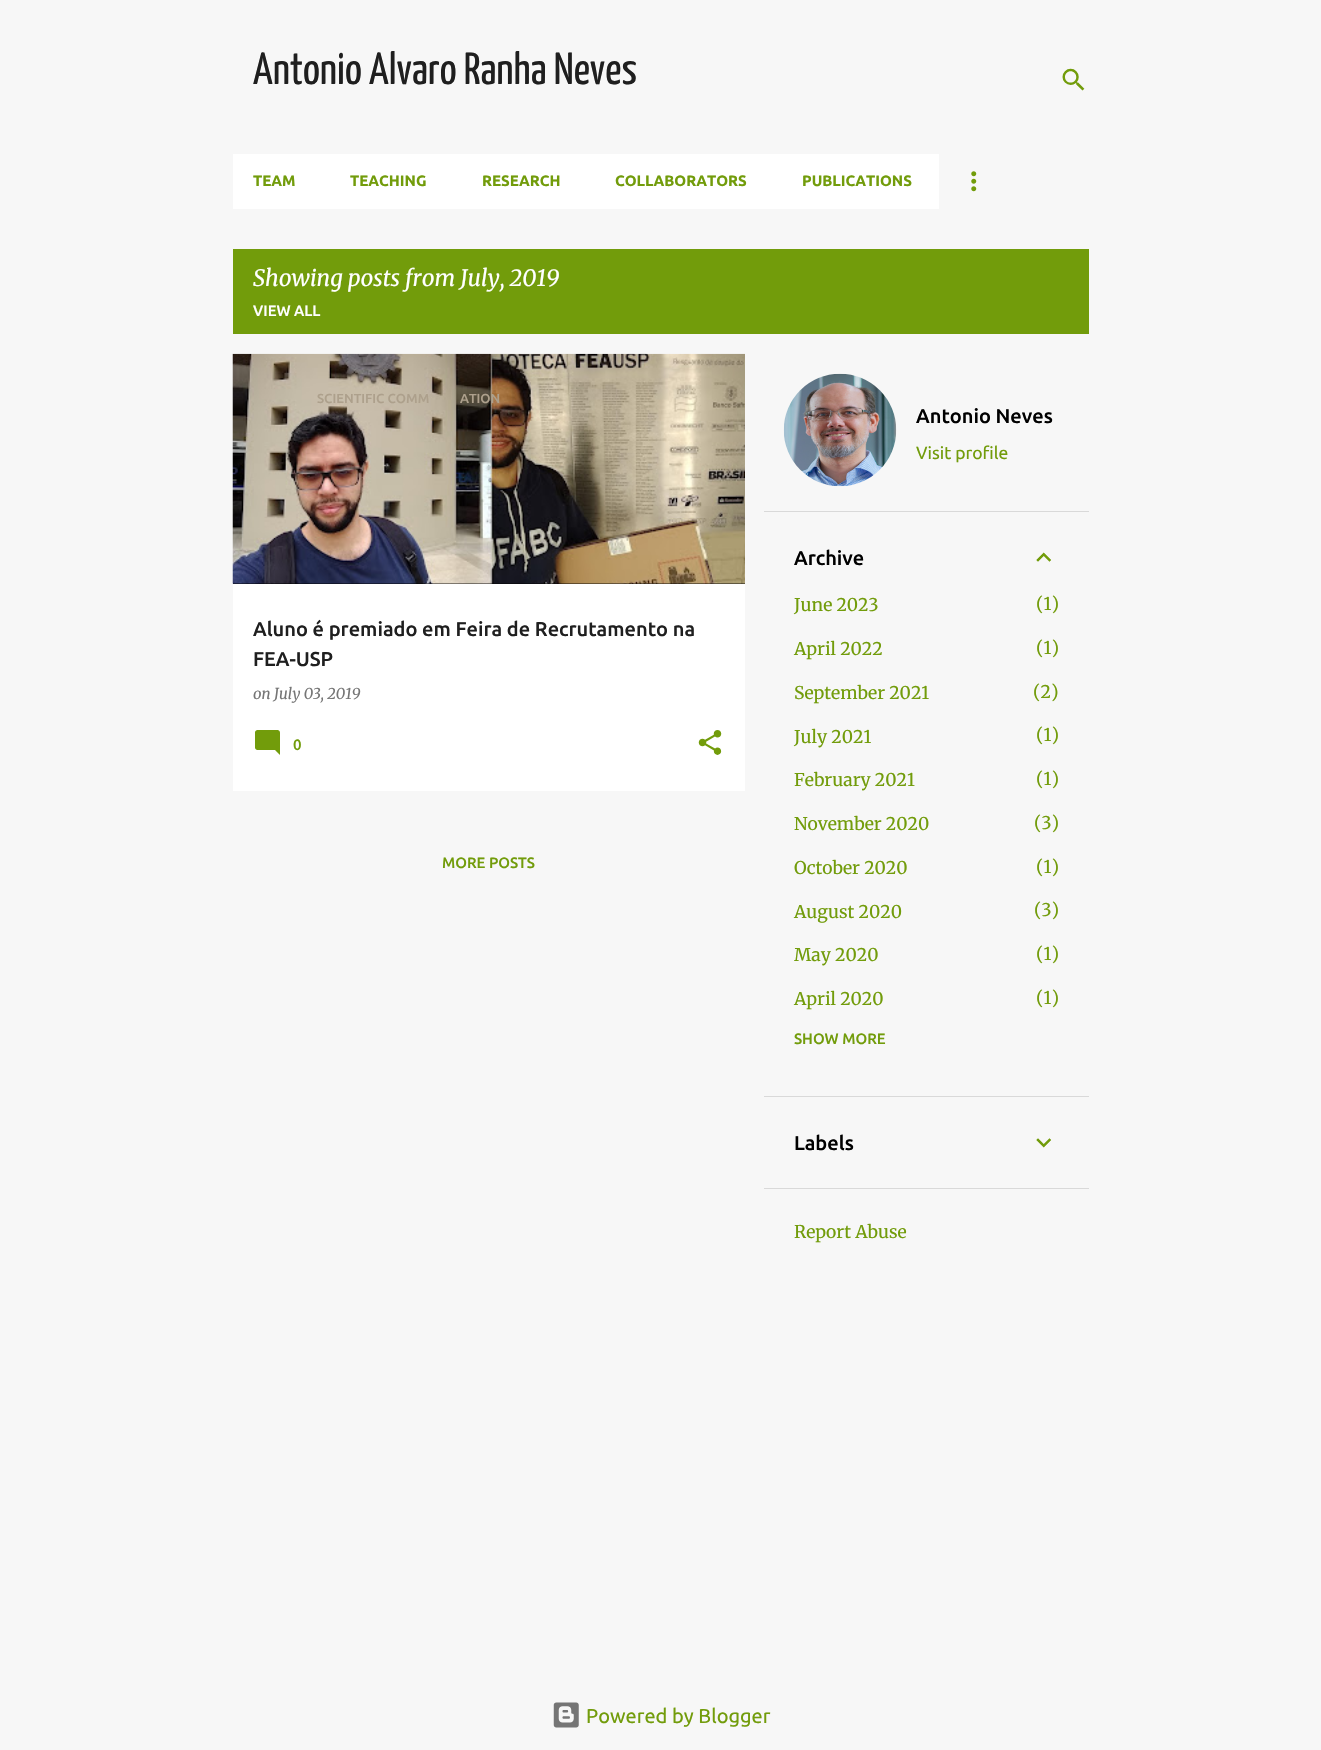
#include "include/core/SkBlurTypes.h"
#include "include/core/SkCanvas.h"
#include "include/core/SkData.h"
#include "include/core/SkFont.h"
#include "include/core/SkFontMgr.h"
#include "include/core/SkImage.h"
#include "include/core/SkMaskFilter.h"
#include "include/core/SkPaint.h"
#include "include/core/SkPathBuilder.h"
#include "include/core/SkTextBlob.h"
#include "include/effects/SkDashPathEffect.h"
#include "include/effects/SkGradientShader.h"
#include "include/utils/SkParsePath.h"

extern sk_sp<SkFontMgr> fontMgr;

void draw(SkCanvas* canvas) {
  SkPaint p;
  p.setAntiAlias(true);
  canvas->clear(SkColorSetRGB(247, 247, 247));
  canvas->drawImageRect(SkImages::DeferredFromEncodedData(SkData::MakeFromFileName("images/1.png")), SkRect::MakeLTRB(1062, 68, 1085, 91), SkSamplingOptions());
  p.setColor(SK_ColorWHITE);
  canvas->drawRect(SkRect::MakeLTRB(233, 154, 939, 209), p);
  canvas->drawImageRect(SkImages::DeferredFromEncodedData(SkData::MakeFromFileName("images/2.png")), SkRect::MakeLTRB(971, 171, 977, 192), SkSamplingOptions());
  p.setColor(SkColorSetRGB(114, 156, 11));
  canvas->drawRect(SkRect::MakeLTRB(233, 249, 1089, 334), p);
  p.setColor(SK_ColorWHITE);
  canvas->drawRect(SkRect::MakeLTRB(233, 584, 745, 791), p);
  p.setColor(SK_ColorBLACK);
  canvas->drawRect(SkRect::MakeLTRB(233, 583, 745, 584), p);
  canvas->drawImageRect(SkImages::DeferredFromEncodedData(SkData::MakeFromFileName("images/3.png")), SkRect::MakeLTRB(232, 353, 745, 584), SkSamplingOptions());
  canvas->drawImageRect(SkImages::DeferredFromEncodedData(SkData::MakeFromFileName("images/4.png")), SkRect::MakeLTRB(255, 730, 280, 755), SkSamplingOptions());
  canvas->drawImageRect(SkImages::DeferredFromEncodedData(SkData::MakeFromFileName("images/5.png")), SkRect::MakeLTRB(698, 730, 722, 755), SkSamplingOptions());
  canvas->drawImageRect(SkImages::DeferredFromEncodedData(SkData::MakeFromFileName("images/6.png")), SkRect::MakeLTRB(783, 373, 897, 487), SkSamplingOptions());
  p.setColor(SkColorSetRGB(217, 217, 217));
  canvas->drawRect(SkRect::MakeLTRB(764, 511, 1089, 512), p);
  canvas->drawImageRect(SkImages::DeferredFromEncodedData(SkData::MakeFromFileName("images/7.png")), SkRect::MakeLTRB(1036, 552, 1051, 562), SkSamplingOptions());
  canvas->drawRect(SkRect::MakeLTRB(764, 1096, 1089, 1097), p);
  canvas->drawImageRect(SkImages::DeferredFromEncodedData(SkData::MakeFromFileName("images/8.png")), SkRect::MakeLTRB(1036, 1138, 1051, 1148), SkSamplingOptions());
  canvas->drawRect(SkRect::MakeLTRB(764, 1188, 1089, 1189), p);
  canvas->drawImageRect(SkImages::DeferredFromEncodedData(SkData::MakeFromFileName("images/9.png")), SkRect::MakeLTRB(553, 1702, 579, 1728), SkSamplingOptions());
  SkFont font1(fontMgr->matchFamilyStyle("Yanone Kaffeesatz", SkFontStyle(200, SkFontStyle::kNormal_Width, SkFontStyle::kUpright_Slant)), 45);
  font1.setSubpixel(true);
  p.setColor(SkColorSetRGB(31, 31, 31));
  canvas->drawString("Antonio Alvaro Ranha Neves", 253, 84, font1, p);
  SkFont font2(fontMgr->matchFamilyStyle("Ubuntu", SkFontStyle::Bold()), 15);
  font2.setSubpixel(true);
  p.setColor(SkColorSetRGB(114, 156, 11));
  canvas->drawString("TEAM", 253, 186, font2, p);
  canvas->drawString("TEACHING", 350, 186, font2, p);
  canvas->drawString("RESEARCH", 482, 186, font2, p);
  canvas->drawString("COLLABORATORS", 615, 186, font2, p);
  canvas->drawString("PUBLICATIONS", 802, 186, font2, p);
  SkFont font3(fontMgr->matchFamilyStyle("Merriweather", SkFontStyle::Italic()), 22.5f);
  font3.setSubpixel(true);
  p.setColor(SK_ColorWHITE);
  canvas->drawString("Showing posts from July, 2019", 253, 286, font3, p);
  SkFont font4(fontMgr->matchFamilyStyle("Ubuntu", SkFontStyle(500, SkFontStyle::kNormal_Width, SkFontStyle::kUpright_Slant)), 15);
  font4.setSubpixel(true);
  canvas->drawString("VIEW ALL", 253, 316, font4, p);
  SkFont font5(fontMgr->matchFamilyStyle("Ubuntu", SkFontStyle(500, SkFontStyle::kNormal_Width, SkFontStyle::kUpright_Slant)), 13.1f);
  font5.setSubpixel(true);
  p.setColor(SkColorSetRGB(173, 160, 140));
  canvas->drawString("SCIENTIFIC COMM", 317, 403, font5, p);
  canvas->drawString("ATION", 460, 403, font5, p);
  SkFont font6(fontMgr->matchFamilyStyle("Merriweather", SkFontStyle::Italic()), 15);
  font6.setSubpixel(true);
  p.setColor(SkColorSetRGB(117, 117, 117));
  canvas->drawString("on July 03, 2019", 253, 699, font6, p);
  SkFont font7(fontMgr->matchFamilyStyle("Ubuntu", SkFontStyle(500, SkFontStyle::kNormal_Width, SkFontStyle::kUpright_Slant)), 20);
  font7.setSubpixel(true);
  p.setColor(SkColorSetRGB(31, 31, 31));
  canvas->drawString("Aluno é premiado em Feira de Recrutamento na", 253, 636, font7, p);
  canvas->drawString("FEA-USP", 253, 666, font7, p);
  p.setColor(SkColorSetRGB(114, 156, 11));
  canvas->drawString("0", 293, 750, font4, p);
  canvas->drawString("MORE POSTS", 442, 868, font4, p);
  p.setColor(SK_ColorBLACK);
  canvas->drawString("Antonio Neves", 916, 423, font7, p);
  SkFont font8(fontMgr->matchFamilyStyle("Ubuntu", SkFontStyle::Normal()), 17.5f);
  font8.setSubpixel(true);
  p.setColor(SkColorSetRGB(114, 156, 11));
  canvas->drawString("Visit profile", 916, 459, font8, p);
  p.setColor(SK_ColorBLACK);
  canvas->drawString("Archive", 794, 565, font7, p);
  SkFont font9(fontMgr->matchFamilyStyle("Merriweather", SkFontStyle(300, SkFontStyle::kNormal_Width, SkFontStyle::kUpright_Slant)), 17.5f);
  font9.setSubpixel(true);
  p.setColor(SkColorSetRGB(114, 156, 11));
  canvas->drawString("June 2023", 794, 611, font9, p);
  canvas->drawString("(1)", 1036, 610, font9, p);
  canvas->drawString("April 2022", 794, 655, font9, p);
  canvas->drawString("(1)", 1036, 654, font9, p);
  canvas->drawString("September 2021", 794, 699, font9, p);
  canvas->drawString("(2)", 1033, 698, font9, p);
  canvas->drawString("July 2021", 794, 743, font9, p);
  canvas->drawString("(1)", 1036, 741, font9, p);
  canvas->drawString("February 2021", 794, 786, font9, p);
  canvas->drawString("(1)", 1036, 785, font9, p);
  canvas->drawString("November 2020", 794, 830, font9, p);
  canvas->drawString("(3)", 1034, 829, font9, p);
  canvas->drawString("October 2020", 794, 874, font9, p);
  canvas->drawString("(1)", 1036, 873, font9, p);
  canvas->drawString("August 2020", 794, 918, font9, p);
  canvas->drawString("(3)", 1034, 916, font9, p);
  canvas->drawString("May 2020", 794, 961, font9, p);
  canvas->drawString("(1)", 1036, 960, font9, p);
  canvas->drawString("April 2020", 794, 1005, font9, p);
  canvas->drawString("(1)", 1036, 1004, font9, p);
  canvas->drawString("SHOW MORE", 794, 1044, font4, p);
  p.setColor(SK_ColorBLACK);
  canvas->drawString("Labels", 794, 1150, font7, p);
  p.setColor(SkColorSetRGB(114, 156, 11));
  canvas->drawString("Report Abuse", 794, 1238, font9, p);
  SkFont font10(fontMgr->matchFamilyStyle("Ubuntu", SkFontStyle::Normal()), 20);
  font10.setSubpixel(true);
  canvas->drawString("Powered by Blogger", 586, 1723, font10, p);
}
